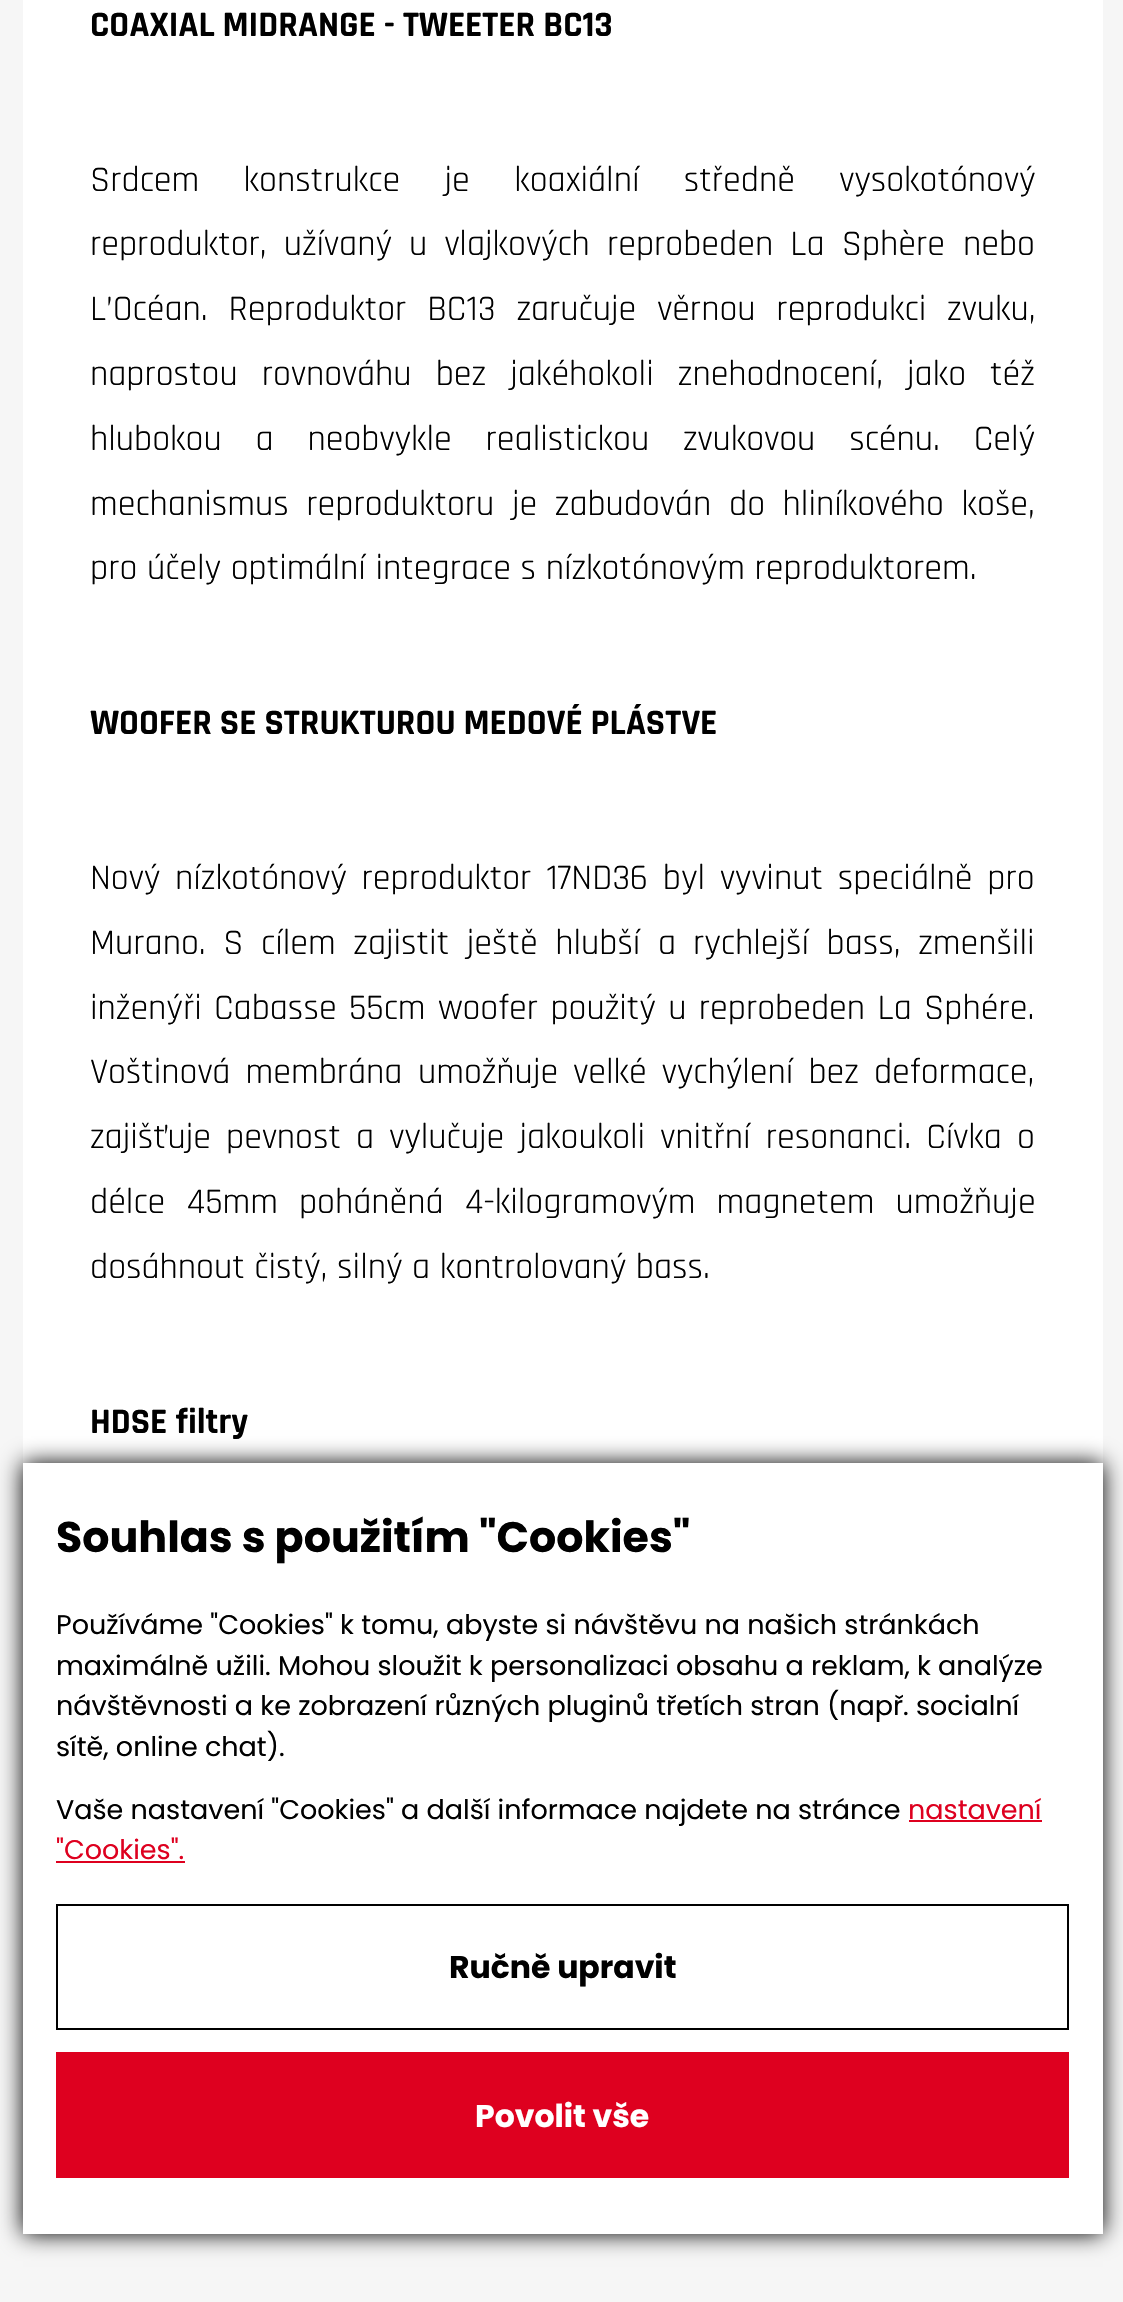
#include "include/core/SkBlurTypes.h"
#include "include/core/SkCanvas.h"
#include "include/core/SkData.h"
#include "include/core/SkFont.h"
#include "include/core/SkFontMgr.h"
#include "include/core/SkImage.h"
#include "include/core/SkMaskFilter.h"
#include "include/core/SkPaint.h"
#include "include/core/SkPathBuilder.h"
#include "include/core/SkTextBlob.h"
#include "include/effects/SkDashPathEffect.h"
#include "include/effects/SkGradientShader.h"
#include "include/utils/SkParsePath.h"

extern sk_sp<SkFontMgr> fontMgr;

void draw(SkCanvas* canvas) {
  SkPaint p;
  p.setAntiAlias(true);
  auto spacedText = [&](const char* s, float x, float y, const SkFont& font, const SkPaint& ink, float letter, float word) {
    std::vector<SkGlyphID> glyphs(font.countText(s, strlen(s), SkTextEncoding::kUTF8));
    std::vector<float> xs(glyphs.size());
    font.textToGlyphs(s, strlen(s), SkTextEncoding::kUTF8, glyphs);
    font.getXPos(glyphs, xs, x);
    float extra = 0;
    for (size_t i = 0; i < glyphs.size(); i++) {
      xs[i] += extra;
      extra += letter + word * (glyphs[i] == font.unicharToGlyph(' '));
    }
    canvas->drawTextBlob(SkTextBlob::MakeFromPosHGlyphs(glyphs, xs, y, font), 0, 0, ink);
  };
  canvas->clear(SkColorSetRGB(246, 246, 246));
  p.setColor(SK_ColorWHITE);
  canvas->drawRect(SkRect::MakeLTRB(23, 0, 1103, 1463), p);
  p.setColor(SK_ColorBLACK);
  p.setMaskFilter(SkMaskFilter::MakeBlur(kNormal_SkBlurStyle, 11));
  canvas->drawRect(SkRect::MakeLTRB(23, 1463, 1103, 2234), p);
  p.setMaskFilter(nullptr);
  p.setColor(SK_ColorWHITE);
  canvas->drawRect(SkRect::MakeLTRB(23, 1463, 1103, 2234), p);
  p.setColor(SkColorSetRGB(222, 0, 31));
  canvas->drawRect(SkRect::MakeLTRB(909, 1820, 1042, 1822), p);
  canvas->drawRect(SkRect::MakeLTRB(56, 1861, 185, 1863), p);
  p.setStyle(SkPaint::kStroke_Style);
  p.setStrokeWidth(2);
  p.setColor(SK_ColorBLACK);
  canvas->drawRect(SkRect::MakeLTRB(57, 1905, 1068, 2029), p);
  p.setStyle(SkPaint::kFill_Style);
  p.setColor(SkColorSetRGB(222, 0, 31));
  canvas->drawRect(SkRect::MakeLTRB(56, 2052, 1069, 2178), p);
  SkFont font1(fontMgr->matchFamilyStyle("Rajdhani", SkFontStyle::Bold()), 36);
  font1.setSubpixel(true);
  p.setColor(SK_ColorBLACK);
  canvas->drawString("COAXIAL MIDRANGE - TWEETER BC13", 90, 36, font1, p);
  SkFont font2(fontMgr->matchFamilyStyle("Rajdhani", SkFontStyle::Normal()), 36);
  font2.setSubpixel(true);
  spacedText("Srdcem konstrukce je koaxiální středně vysokotónový", 90, 191, font2, p, 0, 34.75f);
  spacedText("reproduktor, užívaný u vlajkových reprobeden La Sphère", 90, 255, font2, p, 0, 7.5f);
  canvas->drawString("nebo", 963, 255, font2, p);
  spacedText("L’Océan. Reproduktor BC13 zaručuje věrnou reprodukci zvuku,", 90, 320, font2, p, 0, 11.25f);
  spacedText("naprostou rovnováhu bez jakéhokoli znehodnocení,", 90, 385, font2, p, 0, 14.5f);
  spacedText("jako též", 907, 385, font2, p, 0, 14.5f);
  spacedText("hlubokou a neobvykle realistickou zvukovou scénu. Celý", 90, 450, font2, p, 0, 24.25f);
  spacedText("mechanismus reproduktoru je zabudován", 90, 515, font2, p, 0, 8);
  spacedText("do hliníkového koše,", 729, 515, font2, p, 0, 8);
  canvas->drawString("pro účely optimální integrace s nízkotónovým reproduktorem.", 90, 579, font2, p);
  canvas->drawString("WOOFER SE STRUKTUROU MEDOVÉ PLÁSTVE", 90, 734, font1, p);
  spacedText("Nový nízkotónový reproduktor 17ND36 byl vyvinut speciálně pro", 90, 889, font2, p, 0, 5.25f);
  spacedText("Murano. S cílem zajistit ještě hlubší a", 90, 954, font2, p, 0, 8);
  spacedText("rychlejší bass, zmenšili", 693, 954, font2, p, 0, 8);
  spacedText("inženýři Cabasse 55cm woofer použitý u reprobeden La Sphére.", 90, 1019, font2, p, 0, 2.75f);
  spacedText("Voštinová membrána", 90, 1083, font2, p, 0, 5.5f);
  spacedText("umožňuje velké vychýlení bez deformace,", 418, 1083, font2, p, 0, 5.5f);
  spacedText("zajišťuje pevnost a vylučuje jakoukoli vnitřní resonanci. Cívka", 90, 1148, font2, p, 0, 5.5f);
  canvas->drawString("o", 1017, 1148, font2, p);
  spacedText("délce 45mm poháněná 4-kilogramovým magnetem umožňuje", 90, 1213, font2, p, 0, 11.5f);
  canvas->drawString("dosáhnout čistý, silný a kontrolovaný bass.", 90, 1278, font2, p);
  canvas->drawString("HDSE filtry", 90, 1433, font1, p);
  SkFont font3(fontMgr->matchFamilyStyle("Poppins", SkFontStyle::Bold()), 42.75f);
  font3.setSubpixel(true);
  canvas->drawString("Souhlas s použitím \"Cookies\"", 56, 1552, font3, p);
  SkFont font4(fontMgr->matchFamilyStyle("Poppins", SkFontStyle::Normal()), 27);
  font4.setSubpixel(true);
  canvas->drawString("Používáme \"Cookies\" k tomu, abyste si návštěvu na našich stránkách", 56, 1634, font4, p);
  canvas->drawString("maximálně užili. Mohou sloužit k personalizaci obsahu a reklam, k analýze", 56, 1675, font4, p);
  canvas->drawString("návštěvnosti a ke zobrazení různých pluginů třetích stran (např. socialní", 56, 1715, font4, p);
  canvas->drawString("sítě, online chat).", 56, 1756, font4, p);
  canvas->drawString("Vaše nastavení \"Cookies\" a další informace najdete na stránce", 56, 1819, font4, p);
  p.setColor(SkColorSetRGB(222, 0, 31));
  canvas->drawString("nastavení", 908, 1819, font4, p);
  canvas->drawString("\"Cookies\".", 56, 1859, font4, p);
  SkFont font5(fontMgr->matchFamilyStyle("Poppins", SkFontStyle::Bold()), 31.5f);
  font5.setSubpixel(true);
  p.setColor(SK_ColorBLACK);
  canvas->drawString("Ručně upravit", 449, 1978, font5, p);
  p.setColor(SK_ColorWHITE);
  canvas->drawString("Povolit vše", 475, 2127, font5, p);
}
